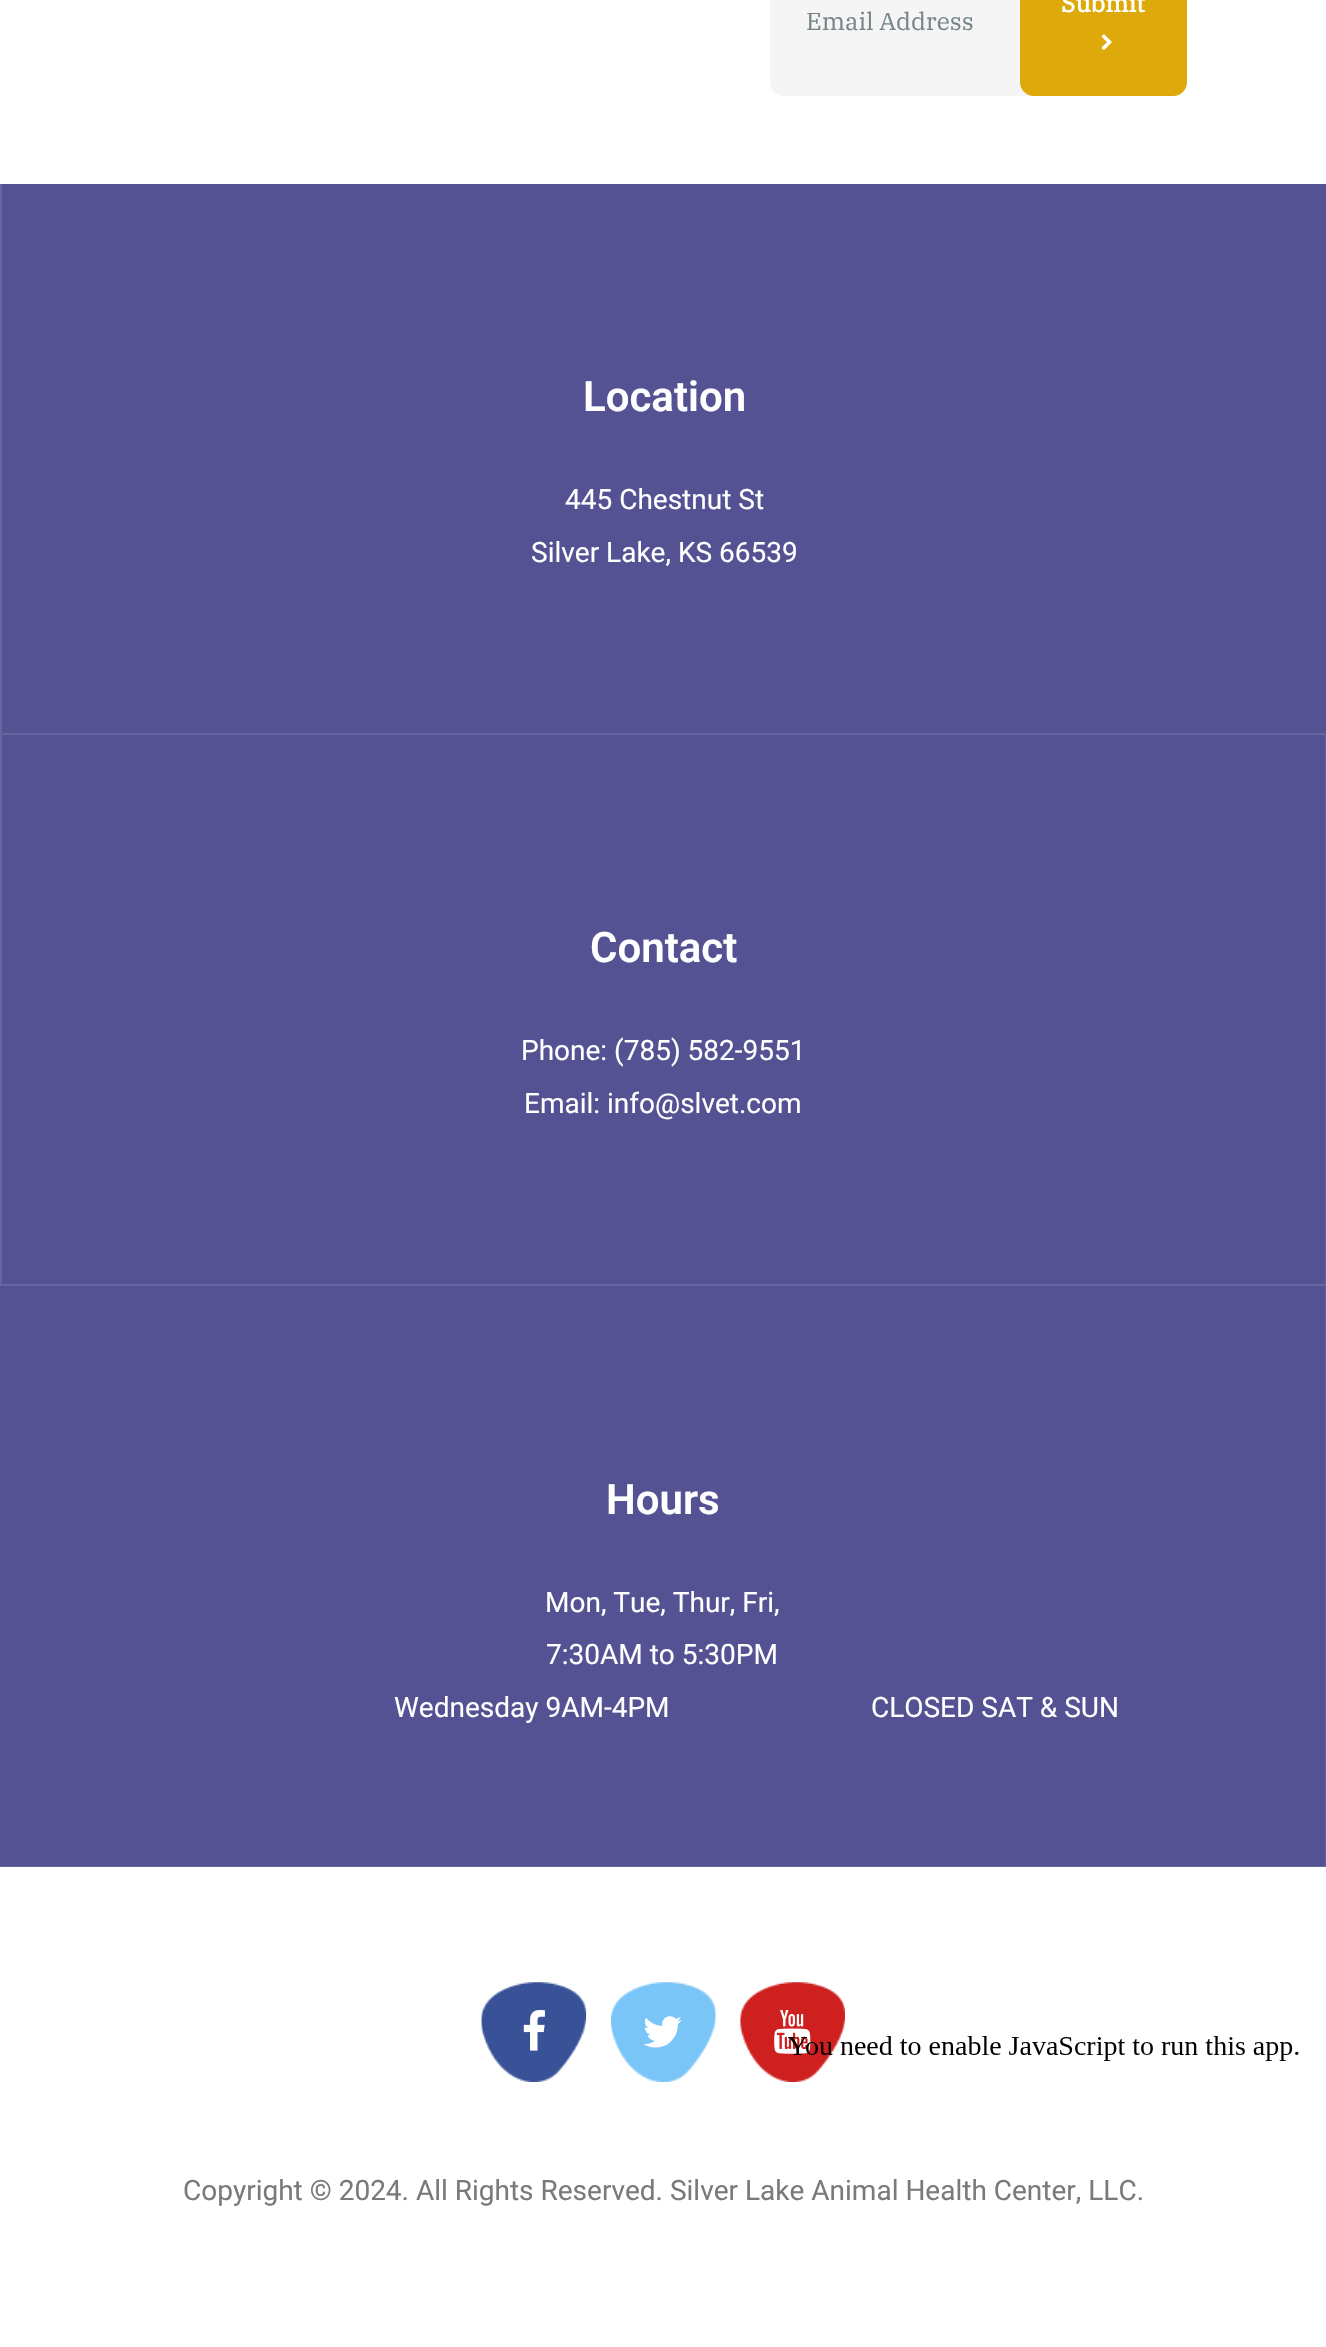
#include "include/core/SkBlurTypes.h"
#include "include/core/SkCanvas.h"
#include "include/core/SkData.h"
#include "include/core/SkFont.h"
#include "include/core/SkFontMgr.h"
#include "include/core/SkImage.h"
#include "include/core/SkMaskFilter.h"
#include "include/core/SkPaint.h"
#include "include/core/SkPathBuilder.h"
#include "include/core/SkTextBlob.h"
#include "include/effects/SkDashPathEffect.h"
#include "include/effects/SkGradientShader.h"
#include "include/utils/SkParsePath.h"

extern sk_sp<SkFontMgr> fontMgr;

void draw(SkCanvas* canvas) {
  SkPaint p;
  p.setAntiAlias(true);
  canvas->clear(SK_ColorWHITE);
  p.setColor(SkColorSetRGB(245, 245, 245));
  canvas->drawRoundRect(SkRect::MakeLTRB(770, -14, 1187, 96), 14, 14, p);
  p.setColor(SkColorSetRGB(221, 169, 11));
  canvas->drawRoundRect(SkRect::MakeLTRB(1021, -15, 1186, 95), 13, 13, p);
  p.setStyle(SkPaint::kStroke_Style);
  p.setStrokeWidth(2);
  canvas->drawRoundRect(SkRect::MakeLTRB(1021, -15, 1186, 95), 13, 13, p);
  canvas->drawImageRect(SkImages::DeferredFromEncodedData(SkData::MakeFromFileName("images/1.png")), SkRect::MakeLTRB(1101, 34, 1112, 50), SkSamplingOptions());
  p.setStyle(SkPaint::kFill_Style);
  p.setColor(SkColorSetRGB(85, 82, 148));
  canvas->drawRect(SkRect::MakeLTRB(0, 184, 1326, 1867), p);
  p.setColor(SkColorSetRGB(102, 99, 159));
  canvas->drawPath(SkPathBuilder().moveTo(1326, 735).lineTo(0, 735).lineTo(2, 733).lineTo(1326, 733).close().detach(), p);
  p.setColor(SkColorSetARGB(26, 255, 255, 255));
  canvas->drawPath(SkPathBuilder().moveTo(0, 735).lineTo(0, 184).lineTo(2, 184).lineTo(2, 733).close().detach(), p);
  p.setColor(SkColorSetRGB(102, 99, 159));
  canvas->drawPath(SkPathBuilder().moveTo(1326, 735).lineTo(1326, 1286).lineTo(1325, 1284).lineTo(1325, 735).close().detach(), p);
  p.setColor(SkColorSetARGB(26, 255, 255, 255));
  canvas->drawPath(SkPathBuilder().moveTo(1326, 1286).lineTo(0, 1286).lineTo(2, 1284).lineTo(1325, 1284).close().detach(), p);
  canvas->drawPath(SkPathBuilder().moveTo(0, 1286).lineTo(0, 735).lineTo(2, 735).lineTo(2, 1284).close().detach(), p);
  p.setColor(SkColorSetRGB(102, 99, 159));
  canvas->drawPath(SkPathBuilder().moveTo(1326, 1286).lineTo(1326, 1867).lineTo(1325, 1866).lineTo(1325, 1286).close().detach(), p);
  p.setColor(SkColorSetARGB(26, 255, 255, 255));
  canvas->drawPath(SkPathBuilder().moveTo(1326, 1867).lineTo(0, 1867).lineTo(0, 1866).lineTo(1325, 1866).close().detach(), p);
  canvas->drawImageRect(SkImages::DeferredFromEncodedData(SkData::MakeFromFileName("images/2.png")), SkRect::MakeLTRB(481, 1982, 587, 2082), SkSamplingOptions());
  canvas->drawImageRect(SkImages::DeferredFromEncodedData(SkData::MakeFromFileName("images/3.png")), SkRect::MakeLTRB(523, 2010, 545, 2051), SkSamplingOptions());
  canvas->drawImageRect(SkImages::DeferredFromEncodedData(SkData::MakeFromFileName("images/4.png")), SkRect::MakeLTRB(611, 1982, 716, 2082), SkSamplingOptions());
  canvas->drawImageRect(SkImages::DeferredFromEncodedData(SkData::MakeFromFileName("images/5.png")), SkRect::MakeLTRB(643, 2016, 682, 2048), SkSamplingOptions());
  canvas->drawImageRect(SkImages::DeferredFromEncodedData(SkData::MakeFromFileName("images/6.png")), SkRect::MakeLTRB(740, 1982, 845, 2082), SkSamplingOptions());
  canvas->drawImageRect(SkImages::DeferredFromEncodedData(SkData::MakeFromFileName("images/7.png")), SkRect::MakeLTRB(774, 2010, 811, 2054), SkSamplingOptions());
  canvas->drawImageRect(SkImages::DeferredFromEncodedData(SkData::MakeFromFileName("images/8.png")), SkRect::MakeLTRB(788, 2036, 1299, 2061), SkSamplingOptions());
  SkFont font1(fontMgr->matchFamilyStyle("IBM Plex Serif", SkFontStyle::Bold()), 24.5f);
  font1.setSubpixel(true);
  p.setColor(SK_ColorWHITE);
  canvas->drawString("Submit", 1061, 12, font1, p);
  SkFont font2(fontMgr->matchFamilyStyle("IBM Plex Serif", SkFontStyle::Normal()), 24.5f);
  font2.setSubpixel(true);
  p.setColor(SkColorSetRGB(118, 133, 136));
  canvas->drawString("Email Address", 806, 30, font2, p);
  SkFont font3(fontMgr->matchFamilyStyle("Roboto", SkFontStyle(600, SkFontStyle::kNormal_Width, SkFontStyle::kUpright_Slant)), 42);
  font3.setSubpixel(true);
  p.setColor(SK_ColorWHITE);
  canvas->drawString("Location", 583, 411, font3, p);
  SkFont font4(fontMgr->matchFamilyStyle("Roboto", SkFontStyle::Normal()), 28);
  font4.setSubpixel(true);
  canvas->drawString("445 Chestnut St", 565, 509, font4, p);
  canvas->drawString("Silver Lake, KS 66539", 531, 562, font4, p);
  canvas->drawString("Contact", 590, 962, font3, p);
  canvas->drawString("Phone: (785) 582-9551", 521, 1060, font4, p);
  canvas->drawString("Email: info@slvet.com", 524, 1113, font4, p);
  canvas->drawString("Hours", 606, 1514, font3, p);
  canvas->drawString("Mon, Tue, Thur, Fri,", 545, 1612, font4, p);
  canvas->drawString("7:30AM to 5:30PM", 546, 1664, font4, p);
  canvas->drawString("Wednesday 9AM-4PM                             CLOSED SAT & SUN", 394, 1717, font4, p);
  p.setColor(SkColorSetRGB(122, 122, 122));
  canvas->drawString("Copyright © 2024. All Rights Reserved. Silver Lake Animal Health Center, LLC.", 183, 2200, font4, p);
}
